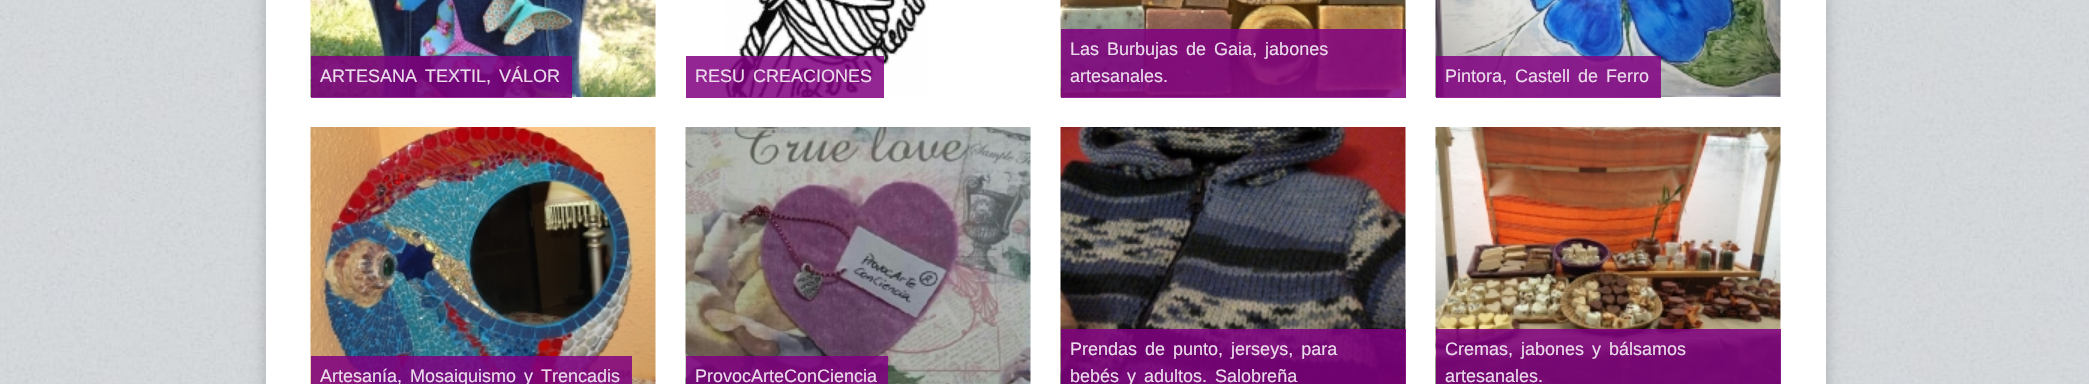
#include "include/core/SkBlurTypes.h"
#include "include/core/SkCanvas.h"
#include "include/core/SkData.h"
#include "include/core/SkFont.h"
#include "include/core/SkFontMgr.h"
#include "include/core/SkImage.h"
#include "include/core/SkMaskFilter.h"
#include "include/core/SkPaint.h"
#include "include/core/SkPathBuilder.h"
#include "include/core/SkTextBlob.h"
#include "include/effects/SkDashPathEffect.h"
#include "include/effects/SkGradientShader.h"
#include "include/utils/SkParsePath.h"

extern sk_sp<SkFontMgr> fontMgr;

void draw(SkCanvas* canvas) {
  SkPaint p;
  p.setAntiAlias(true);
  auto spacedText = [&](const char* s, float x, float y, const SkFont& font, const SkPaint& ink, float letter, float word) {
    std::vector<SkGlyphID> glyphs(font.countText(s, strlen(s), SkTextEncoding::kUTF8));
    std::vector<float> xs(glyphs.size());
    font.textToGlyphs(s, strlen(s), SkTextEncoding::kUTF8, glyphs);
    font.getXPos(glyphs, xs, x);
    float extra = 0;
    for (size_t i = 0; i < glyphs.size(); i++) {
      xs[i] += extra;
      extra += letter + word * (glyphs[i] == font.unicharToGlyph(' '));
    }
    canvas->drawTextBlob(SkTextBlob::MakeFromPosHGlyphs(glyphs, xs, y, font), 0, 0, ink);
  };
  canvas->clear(SK_ColorWHITE);
  canvas->drawImageRect(SkImages::DeferredFromEncodedData(SkData::MakeFromFileName("images/1.png")), SkRect::MakeLTRB(0, 0, 2089, 384), SkSamplingOptions());
  p.setColor(SkColorSetARGB(51, 0, 0, 0));
  p.setMaskFilter(SkMaskFilter::MakeBlur(kNormal_SkBlurStyle, 7.5f));
  canvas->drawRect(SkRect::MakeLTRB(266, -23, 1826, 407), p);
  p.setMaskFilter(nullptr);
  p.setColor(SK_ColorWHITE);
  canvas->drawRect(SkRect::MakeLTRB(266, 0, 1826, 384), p);
  canvas->drawImageRect(SkImages::DeferredFromEncodedData(SkData::MakeFromFileName("images/2.png")), SkRect::MakeLTRB(310, 0, 656, 97), SkSamplingOptions());
  p.setColor(SkColorSetARGB(217, 128, 0, 128));
  canvas->drawRect(SkRect::MakeLTRB(311, 56, 572, 98), p);
  canvas->drawImageRect(SkImages::DeferredFromEncodedData(SkData::MakeFromFileName("images/3.png")), SkRect::MakeLTRB(724, 0, 929, 97), SkSamplingOptions());
  canvas->drawRect(SkRect::MakeLTRB(686, 56, 884, 98), p);
  canvas->drawImageRect(SkImages::DeferredFromEncodedData(SkData::MakeFromFileName("images/4.png")), SkRect::MakeLTRB(1060, 0, 1406, 97), SkSamplingOptions());
  canvas->drawRect(SkRect::MakeLTRB(1061, 29, 1406, 98), p);
  canvas->drawImageRect(SkImages::DeferredFromEncodedData(SkData::MakeFromFileName("images/5.png")), SkRect::MakeLTRB(1435, 0, 1781, 97), SkSamplingOptions());
  canvas->drawRect(SkRect::MakeLTRB(1436, 56, 1661, 98), p);
  canvas->drawImageRect(SkImages::DeferredFromEncodedData(SkData::MakeFromFileName("images/6.png")), SkRect::MakeLTRB(310, 127, 656, 384), SkSamplingOptions());
  canvas->drawRect(SkRect::MakeLTRB(311, 356, 632, 384), p);
  canvas->drawImageRect(SkImages::DeferredFromEncodedData(SkData::MakeFromFileName("images/7.png")), SkRect::MakeLTRB(685, 127, 1031, 384), SkSamplingOptions());
  canvas->drawRect(SkRect::MakeLTRB(686, 356, 888, 384), p);
  canvas->drawImageRect(SkImages::DeferredFromEncodedData(SkData::MakeFromFileName("images/8.png")), SkRect::MakeLTRB(1060, 127, 1406, 384), SkSamplingOptions());
  canvas->drawRect(SkRect::MakeLTRB(1061, 329, 1406, 384), p);
  canvas->drawImageRect(SkImages::DeferredFromEncodedData(SkData::MakeFromFileName("images/9.png")), SkRect::MakeLTRB(1435, 127, 1781, 384), SkSamplingOptions());
  canvas->drawRect(SkRect::MakeLTRB(1436, 329, 1781, 384), p);
  SkFont font1(fontMgr->matchFamilyStyle("Liberation Sans", SkFontStyle::Normal()), 18);
  font1.setSubpixel(true);
  p.setColor(SkColorSetRGB(235, 219, 235));
  spacedText("ARTESANA TEXTIL, VÁLOR", 320, 82, font1, p, 0, 3);
  spacedText("RESU CREACIONES", 695, 82, font1, p, 0, 3);
  spacedText("Las Burbujas de Gaia, jabones", 1070, 55, font1, p, 0, 3);
  canvas->drawString("artesanales.", 1070, 82, font1, p);
  spacedText("Pintora, Castell de Ferro", 1445, 82, font1, p, 0, 3);
  spacedText("Artesanía, Mosaiquismo y Trencadis", 320, 382, font1, p, 0, 3);
  canvas->drawString("ProvocArteConCiencia", 695, 382, font1, p);
  spacedText("Prendas de punto, jerseys, para", 1070, 355, font1, p, 0, 3);
  spacedText("bebés y adultos. Salobreña", 1070, 382, font1, p, 0, 3);
  spacedText("Cremas, jabones y bálsamos", 1445, 355, font1, p, 0, 3);
  canvas->drawString("artesanales.", 1445, 382, font1, p);
}
